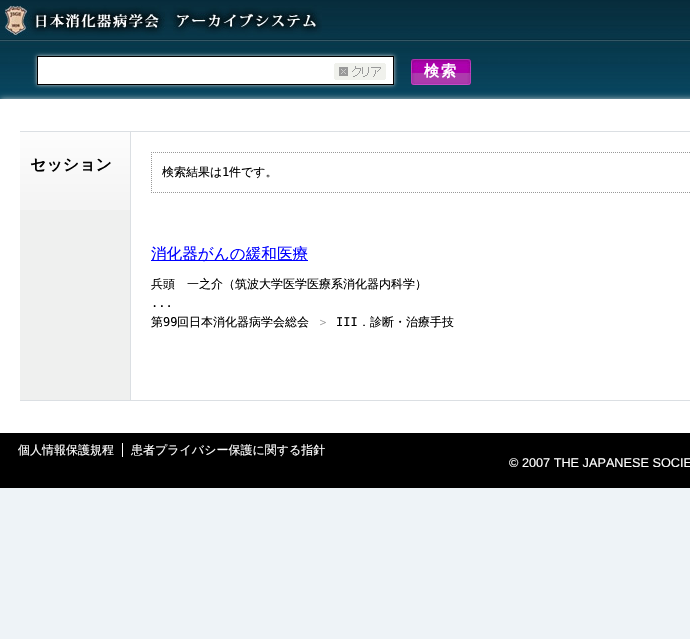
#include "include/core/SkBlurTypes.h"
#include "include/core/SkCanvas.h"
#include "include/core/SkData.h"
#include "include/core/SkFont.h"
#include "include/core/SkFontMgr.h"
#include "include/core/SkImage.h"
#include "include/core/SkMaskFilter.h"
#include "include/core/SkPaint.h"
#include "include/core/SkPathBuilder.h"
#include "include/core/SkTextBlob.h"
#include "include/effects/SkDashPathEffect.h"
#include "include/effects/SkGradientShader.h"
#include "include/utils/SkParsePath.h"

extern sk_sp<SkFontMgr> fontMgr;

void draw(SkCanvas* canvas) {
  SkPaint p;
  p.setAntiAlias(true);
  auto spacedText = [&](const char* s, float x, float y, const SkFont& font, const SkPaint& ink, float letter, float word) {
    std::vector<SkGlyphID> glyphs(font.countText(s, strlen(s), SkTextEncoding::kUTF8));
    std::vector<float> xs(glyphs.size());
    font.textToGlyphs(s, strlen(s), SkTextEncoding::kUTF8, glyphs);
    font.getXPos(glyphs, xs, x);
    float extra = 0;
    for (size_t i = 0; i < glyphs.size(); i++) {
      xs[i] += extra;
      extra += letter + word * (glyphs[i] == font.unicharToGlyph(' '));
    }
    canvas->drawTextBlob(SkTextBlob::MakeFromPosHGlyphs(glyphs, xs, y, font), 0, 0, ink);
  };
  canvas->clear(SkColorSetRGB(238, 243, 247));
  canvas->drawImageRect(SkImages::DeferredFromEncodedData(SkData::MakeFromFileName("images/1.png")), SkRect::MakeLTRB(0, 0, 690, 99), SkSamplingOptions());
  canvas->drawImageRect(SkImages::DeferredFromEncodedData(SkData::MakeFromFileName("images/2.png")), SkRect::MakeLTRB(5, 5, 322, 37), SkSamplingOptions());
  p.setColor(SkColorSetRGB(204, 204, 204));
  p.setMaskFilter(SkMaskFilter::MakeBlur(kNormal_SkBlurStyle, 2));
  canvas->drawRect(SkRect::MakeLTRB(37, 56, 394, 85), p);
  p.setMaskFilter(nullptr);
  p.setColor(SK_ColorWHITE);
  canvas->drawRect(SkRect::MakeLTRB(37.5f, 56.5f, 393.5f, 84.5f), p);
  p.setStyle(SkPaint::kStroke_Style);
  p.setStrokeWidth(1);
  p.setColor(SK_ColorBLACK);
  canvas->drawRect(SkRect::MakeLTRB(37.5f, 56.5f, 393.5f, 84.5f), p);
  canvas->drawImageRect(SkImages::DeferredFromEncodedData(SkData::MakeFromFileName("images/3.png")), SkRect::MakeLTRB(334, 63, 386, 80), SkSamplingOptions());
  canvas->drawImageRect(SkImages::DeferredFromEncodedData(SkData::MakeFromFileName("images/4.png")), SkRect::MakeLTRB(411, 59, 471, 85), SkSamplingOptions());
  p.setStyle(SkPaint::kFill_Style);
  p.setColor(SkColorSetRGB(197, 201, 204));
  p.setMaskFilter(SkMaskFilter::MakeBlur(kNormal_SkBlurStyle, 3));
  canvas->drawRect(SkRect::MakeLTRB(0, 99, 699, 433), p);
  p.setMaskFilter(nullptr);
  p.setColor(SK_ColorWHITE);
  canvas->drawRect(SkRect::MakeLTRB(0, 99, 690, 433), p);
  p.setColor(SkColorSetRGB(239, 240, 239));
  canvas->drawRect(SkRect::MakeLTRB(20, 210, 130, 400), p);
  canvas->drawImageRect(SkImages::DeferredFromEncodedData(SkData::MakeFromFileName("images/5.png")), SkRect::MakeLTRB(20, 132, 130, 210), SkSamplingOptions());
  p.setColor(SkColorSetRGB(219, 223, 227));
  canvas->drawRect(SkRect::MakeLTRB(130, 131, 690, 132), p);
  canvas->drawRect(SkRect::MakeLTRB(130, 400, 690, 401), p);
  canvas->drawRect(SkRect::MakeLTRB(130, 131, 131, 401), p);
  canvas->drawRect(SkRect::MakeLTRB(20, 131, 131, 132), p);
  canvas->drawRect(SkRect::MakeLTRB(20, 400, 131, 401), p);
  p.setStyle(SkPaint::kStroke_Style);
  p.setColor(SkColorSetRGB(153, 153, 153));
  p.setPathEffect(SkDashPathEffect::Make({{1, 1}}, 0));
  canvas->drawPath(SkPathBuilder().moveTo(151, 152.5f).lineTo(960, 152.5f).detach(), p);
  p.setPathEffect(nullptr);
  p.setPathEffect(SkDashPathEffect::Make({{1, 1}}, 0));
  canvas->drawPath(SkPathBuilder().moveTo(151, 192.5f).lineTo(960, 192.5f).detach(), p);
  p.setPathEffect(nullptr);
  p.setPathEffect(SkDashPathEffect::Make({{1, 1}}, 0));
  canvas->drawPath(SkPathBuilder().moveTo(151.5f, 152).lineTo(151.5f, 193).detach(), p);
  p.setPathEffect(nullptr);
  p.setStyle(SkPaint::kFill_Style);
  p.setColor(SkColorSetRGB(0, 0, 255));
  canvas->drawRect(SkRect::MakeLTRB(151, 260, 308, 261), p);
  p.setColor(SK_ColorBLACK);
  canvas->drawRect(SkRect::MakeLTRB(0, 433, 690, 488), p);
  p.setColor(SK_ColorWHITE);
  canvas->drawRect(SkRect::MakeLTRB(122, 443, 123, 457), p);
  SkFont font1(fontMgr->matchFamilyStyle("WenQuanYi Zen Hei", SkFontStyle::Bold()), 15);
  font1.setSubpixel(true);
  spacedText("検索", 424, 76, font1, p, 2, 0);
  SkFont font2(fontMgr->matchFamilyStyle("WenQuanYi Zen Hei", SkFontStyle::Bold()), 16);
  font2.setSubpixel(true);
  p.setColor(SK_ColorBLACK);
  canvas->drawString("セッション", 30, 170, font2, p);
  SkFont font3(fontMgr->matchFamilyStyle("WenQuanYi Zen Hei", SkFontStyle(500, SkFontStyle::kNormal_Width, SkFontStyle::kUpright_Slant)), 12);
  font3.setSubpixel(true);
  canvas->drawString("検索結果は", 162, 176, font3, p);
  SkFont font4(fontMgr->matchFamilyStyle("DejaVu Sans Mono", SkFontStyle::Normal()), 12);
  font4.setSubpixel(true);
  canvas->drawString("1", 222, 176, font4, p);
  canvas->drawString("件です。", 229, 176, font3, p);
  SkFont font5(fontMgr->matchFamilyStyle("WenQuanYi Zen Hei", SkFontStyle(500, SkFontStyle::kNormal_Width, SkFontStyle::kUpright_Slant)), 15.6f);
  font5.setSubpixel(true);
  p.setColor(SkColorSetRGB(0, 0, 255));
  canvas->drawString("消化器がんの緩和医療", 151, 259, font5, p);
  p.setColor(SK_ColorBLACK);
  canvas->drawString("兵頭　一之介（筑波大学医学医療系消化器内科学）", 151, 288, font3, p);
  canvas->drawString("...", 151, 307, font4, p);
  canvas->drawString("第", 151, 326, font3, p);
  canvas->drawString("99", 163, 326, font4, p);
  canvas->drawString("回日本消化器病学会総会", 177, 326, font3, p);
  p.setColor(SkColorSetRGB(153, 153, 153));
  canvas->drawString("＞", 317, 326, font3, p);
  p.setColor(SK_ColorBLACK);
  canvas->drawString("III", 336, 326, font4, p);
  canvas->drawString("．診断・治療手技", 358, 326, font3, p);
  p.setColor(SK_ColorWHITE);
  canvas->drawString("個人情報保護規程", 18, 454, font3, p);
  canvas->drawString("患者プライバシー保護に関する指針", 131, 454, font3, p);
  SkFont font6(fontMgr->matchFamilyStyle("Liberation Sans", SkFontStyle::Normal()), 12.7f);
  font6.setSubpixel(true);
  canvas->drawString("© 2007 THE JAPANESE SOCIE", 509, 467, font6, p);
}
